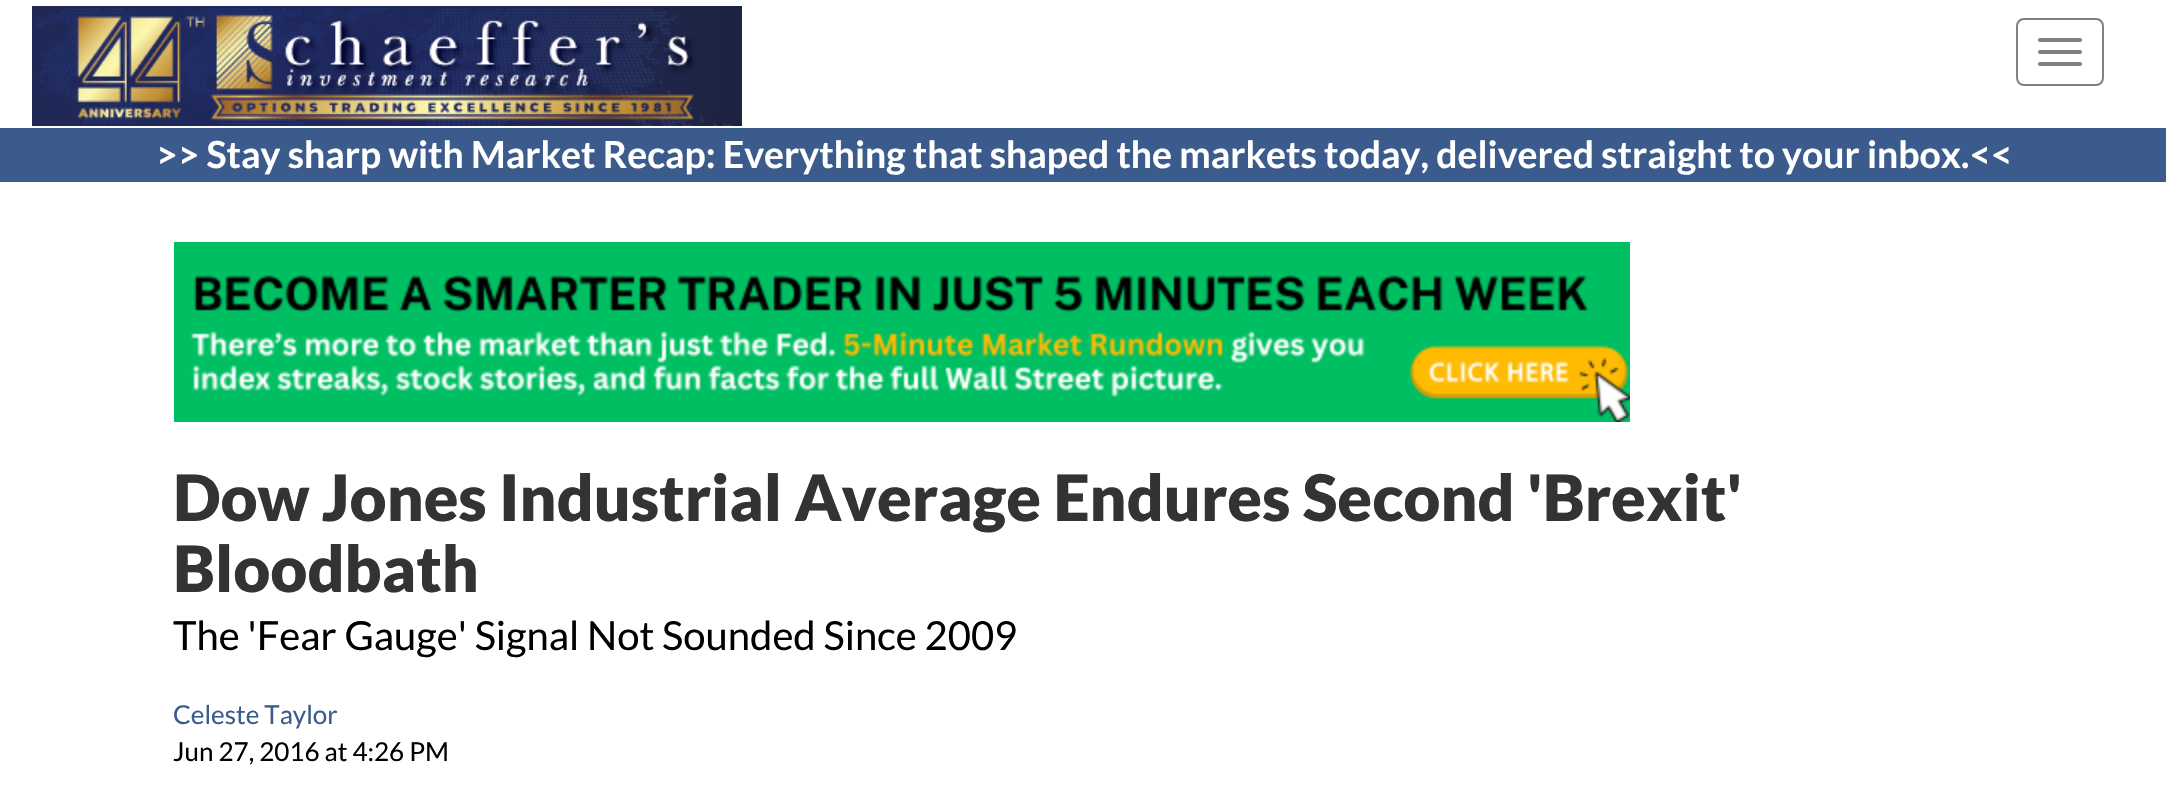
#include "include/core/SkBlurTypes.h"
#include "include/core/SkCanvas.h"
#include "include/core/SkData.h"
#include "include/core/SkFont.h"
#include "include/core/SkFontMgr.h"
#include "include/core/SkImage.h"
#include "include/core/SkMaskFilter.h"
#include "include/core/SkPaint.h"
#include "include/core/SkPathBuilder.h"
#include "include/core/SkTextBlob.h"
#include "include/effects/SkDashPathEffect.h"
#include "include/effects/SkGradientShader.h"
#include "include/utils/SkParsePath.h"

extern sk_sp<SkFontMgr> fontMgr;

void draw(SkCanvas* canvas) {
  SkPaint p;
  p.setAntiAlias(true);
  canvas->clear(SK_ColorWHITE);
  canvas->drawImageRect(SkImages::DeferredFromEncodedData(SkData::MakeFromFileName("images/1.png")), SkRect::MakeLTRB(32, 6, 742, 126), SkSamplingOptions());
  p.setStyle(SkPaint::kStroke_Style);
  p.setStrokeWidth(2);
  p.setColor(SkColorSetRGB(128, 128, 128));
  canvas->drawRoundRect(SkRect::MakeLTRB(2017, 19, 2103, 85), 7, 7, p);
  p.setStyle(SkPaint::kFill_Style);
  canvas->drawRoundRect(SkRect::MakeLTRB(2038, 38, 2082, 42), 2, 2, p);
  canvas->drawRoundRect(SkRect::MakeLTRB(2038, 50, 2082, 54), 2, 2, p);
  canvas->drawRoundRect(SkRect::MakeLTRB(2038, 62, 2082, 66), 2, 2, p);
  p.setColor(SkColorSetRGB(59, 91, 140));
  canvas->drawRect(SkRect::MakeLTRB(0, 128, 2166, 182), p);
  canvas->drawImageRect(SkImages::DeferredFromEncodedData(SkData::MakeFromFileName("images/2.png")), SkRect::MakeLTRB(174, 242, 1630, 422), SkSamplingOptions());
  SkFont font1(fontMgr->matchFamilyStyle("Lato", SkFontStyle::Bold()), 37.35f);
  font1.setSubpixel(true);
  p.setColor(SK_ColorWHITE);
  canvas->drawString(">> Stay sharp with Market Recap: Everything that shaped the markets today, delivered straight to your inbox.<<", 156, 168, font1, p);
  SkFont font2(fontMgr->matchFamilyStyle("Lato", SkFontStyle(900, SkFontStyle::kNormal_Width, SkFontStyle::kUpright_Slant)), 64);
  font2.setSubpixel(true);
  p.setColor(SkColorSetRGB(51, 51, 51));
  canvas->drawString("Dow Jones Industrial Average Endures Second 'Brexit'", 173, 521, font2, p);
  canvas->drawString("Bloodbath", 173, 592, font2, p);
  SkFont font3(fontMgr->matchFamilyStyle("Lato", SkFontStyle::Normal()), 40);
  font3.setSubpixel(true);
  p.setColor(SK_ColorBLACK);
  canvas->drawString("The 'Fear Gauge' Signal Not Sounded Since 2009", 173, 650, font3, p);
  SkFont font4(fontMgr->matchFamilyStyle("Lato", SkFontStyle::Normal()), 26);
  font4.setSubpixel(true);
  p.setColor(SkColorSetRGB(58, 92, 141));
  canvas->drawString("Celeste Taylor", 173, 724, font4, p);
  p.setColor(SK_ColorBLACK);
  canvas->drawString("Jun 27, 2016 at 4:26 PM", 173, 761, font4, p);
}
